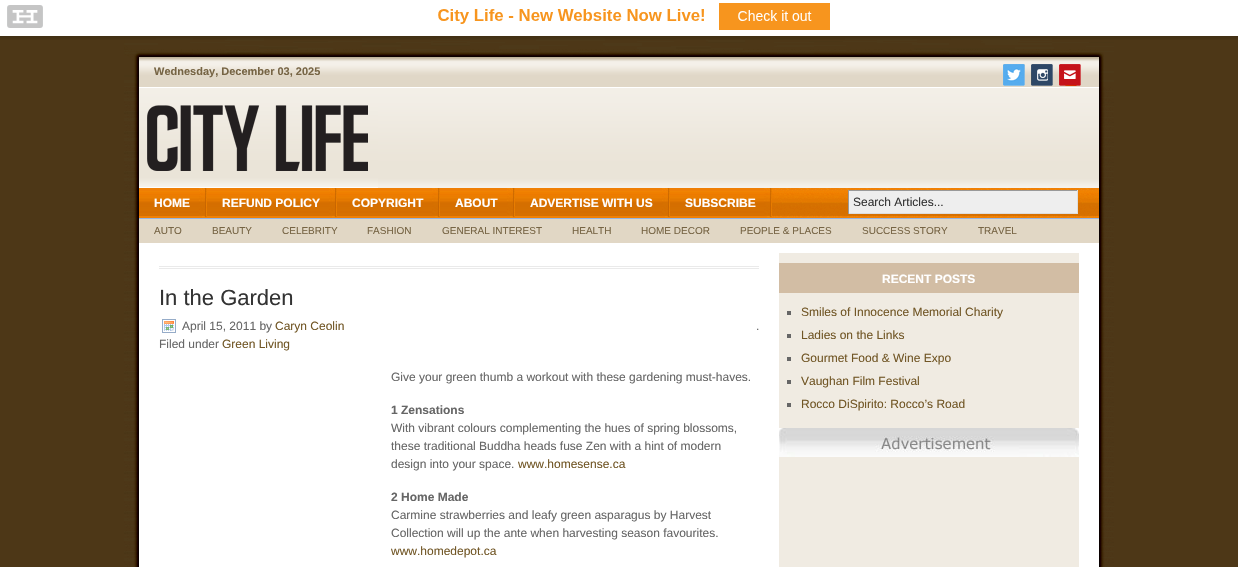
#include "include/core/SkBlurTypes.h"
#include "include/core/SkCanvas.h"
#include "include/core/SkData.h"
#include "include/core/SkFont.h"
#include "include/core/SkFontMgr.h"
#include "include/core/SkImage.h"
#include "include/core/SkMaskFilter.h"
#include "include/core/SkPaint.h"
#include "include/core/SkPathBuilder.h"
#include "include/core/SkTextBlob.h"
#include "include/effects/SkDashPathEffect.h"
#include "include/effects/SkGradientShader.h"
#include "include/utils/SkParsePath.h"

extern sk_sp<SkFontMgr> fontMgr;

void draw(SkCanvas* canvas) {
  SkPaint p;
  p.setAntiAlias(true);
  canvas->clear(SkColorSetRGB(77, 55, 23));
  canvas->drawImageRect(SkImages::DeferredFromEncodedData(SkData::MakeFromFileName("images/3.png")), SkRect::MakeLTRB(124, 37, 1114, 87), SkSamplingOptions());
  canvas->drawImageRect(SkImages::DeferredFromEncodedData(SkData::MakeFromFileName("images/1.png")), SkRect::MakeLTRB(0, 0, 1238, 40), SkSamplingOptions());
  canvas->drawImageRect(SkImages::DeferredFromEncodedData(SkData::MakeFromFileName("images/2.png")), SkRect::MakeLTRB(124, 87, 1114, 567), SkSamplingOptions());
  canvas->drawImageRect(SkImages::DeferredFromEncodedData(SkData::MakeFromFileName("images/4.png")), SkRect::MakeLTRB(1003, 64, 1025, 86), SkSamplingOptions());
  canvas->drawImageRect(SkImages::DeferredFromEncodedData(SkData::MakeFromFileName("images/5.png")), SkRect::MakeLTRB(1031, 64, 1053, 86), SkSamplingOptions());
  canvas->drawImageRect(SkImages::DeferredFromEncodedData(SkData::MakeFromFileName("images/6.png")), SkRect::MakeLTRB(1059, 64, 1081, 86), SkSamplingOptions());
  canvas->drawImageRect(SkImages::DeferredFromEncodedData(SkData::MakeFromFileName("images/7.png")), SkRect::MakeLTRB(139, 88, 1099, 188), SkSamplingOptions());
  canvas->drawImageRect(SkImages::DeferredFromEncodedData(SkData::MakeFromFileName("images/8.png")), SkRect::MakeLTRB(139, 105, 378, 188), SkSamplingOptions());
  canvas->drawImageRect(SkImages::DeferredFromEncodedData(SkData::MakeFromFileName("images/9.png")), SkRect::MakeLTRB(772, 188, 1099, 218), SkSamplingOptions());
  p.setColor(SkColorSetRGB(152, 180, 224));
  canvas->drawRect(SkRect::MakeLTRB(139, 218, 1099, 219), p);
  canvas->drawImageRect(SkImages::DeferredFromEncodedData(SkData::MakeFromFileName("images/10.png")), SkRect::MakeLTRB(139, 188, 207, 218), SkSamplingOptions());
  canvas->drawImageRect(SkImages::DeferredFromEncodedData(SkData::MakeFromFileName("images/11.png")), SkRect::MakeLTRB(207, 188, 337, 218), SkSamplingOptions());
  canvas->drawImageRect(SkImages::DeferredFromEncodedData(SkData::MakeFromFileName("images/12.png")), SkRect::MakeLTRB(337, 188, 440, 218), SkSamplingOptions());
  canvas->drawImageRect(SkImages::DeferredFromEncodedData(SkData::MakeFromFileName("images/13.png")), SkRect::MakeLTRB(440, 188, 515, 218), SkSamplingOptions());
  canvas->drawImageRect(SkImages::DeferredFromEncodedData(SkData::MakeFromFileName("images/14.png")), SkRect::MakeLTRB(515, 188, 670, 218), SkSamplingOptions());
  canvas->drawImageRect(SkImages::DeferredFromEncodedData(SkData::MakeFromFileName("images/15.png")), SkRect::MakeLTRB(670, 188, 772, 218), SkSamplingOptions());
  p.setColor(SkColorSetRGB(238, 238, 238));
  canvas->drawRect(SkRect::MakeLTRB(849, 191, 1077, 213), p);
  p.setColor(SkColorSetRGB(153, 153, 153));
  canvas->drawRect(SkRect::MakeLTRB(848, 190, 1078, 191), p);
  p.setColor(SkColorSetRGB(221, 221, 221));
  canvas->drawRect(SkRect::MakeLTRB(1077, 190, 1078, 214), p);
  canvas->drawRect(SkRect::MakeLTRB(848, 213, 1078, 214), p);
  p.setColor(SkColorSetRGB(153, 153, 153));
  canvas->drawRect(SkRect::MakeLTRB(848, 190, 849, 214), p);
  p.setColor(SkColorSetRGB(225, 215, 197));
  canvas->drawRect(SkRect::MakeLTRB(139, 219, 1099, 243), p);
  p.setColor(SkColorSetRGB(234, 234, 234));
  canvas->drawRect(SkRect::MakeLTRB(159, 266, 759, 267), p);
  canvas->drawRect(SkRect::MakeLTRB(159, 268, 759, 269), p);
  canvas->drawImageRect(SkImages::DeferredFromEncodedData(SkData::MakeFromFileName("images/16.png")), SkRect::MakeLTRB(162, 319, 176, 333), SkSamplingOptions());
  p.setColor(SkColorSetRGB(240, 235, 226));
  canvas->drawRect(SkRect::MakeLTRB(779, 253, 1079, 567), p);
  p.setColor(SkColorSetRGB(210, 189, 164));
  canvas->drawRect(SkRect::MakeLTRB(779, 263, 1079, 293), p);
  p.setColor(SkColorSetRGB(102, 102, 102));
  canvas->drawRect(SkRect::MakeLTRB(787, 311, 791, 315), p);
  canvas->drawRect(SkRect::MakeLTRB(787, 334, 791, 338), p);
  canvas->drawRect(SkRect::MakeLTRB(787, 357, 791, 361), p);
  canvas->drawRect(SkRect::MakeLTRB(787, 380, 791, 384), p);
  canvas->drawRect(SkRect::MakeLTRB(787, 403, 791, 407), p);
  canvas->drawImageRect(SkImages::DeferredFromEncodedData(SkData::MakeFromFileName("images/17.png")), SkRect::MakeLTRB(779, 428, 1079, 457), SkSamplingOptions());
  SkFont font1(fontMgr->matchFamilyStyle("Liberation Sans", SkFontStyle::Bold()), 11);
  font1.setSubpixel(true);
  p.setColor(SkColorSetRGB(118, 100, 68));
  canvas->drawString("Wednesday, December 03, 2025", 154, 75, font1, p);
  SkFont font2(fontMgr->matchFamilyStyle("Liberation Sans", SkFontStyle::Bold()), 12);
  font2.setSubpixel(true);
  p.setColor(SK_ColorWHITE);
  canvas->drawString("HOME", 154, 207, font2, p);
  canvas->drawString("REFUND POLICY", 222, 207, font2, p);
  canvas->drawString("COPYRIGHT", 352, 207, font2, p);
  canvas->drawString("ABOUT", 455, 207, font2, p);
  canvas->drawString("ADVERTISE WITH US", 530, 207, font2, p);
  canvas->drawString("SUBSCRIBE", 685, 207, font2, p);
  SkFont font3(fontMgr->matchFamilyStyle("Liberation Sans", SkFontStyle::Normal()), 12);
  font3.setSubpixel(true);
  p.setColor(SkColorSetRGB(51, 51, 51));
  canvas->drawString("Search Articles...", 853, 206, font3, p);
  SkFont font4(fontMgr->matchFamilyStyle("Liberation Sans", SkFontStyle::Normal()), 10);
  font4.setSubpixel(true);
  p.setColor(SkColorSetRGB(118, 100, 68));
  canvas->drawString("AUTO", 154, 234, font4, p);
  canvas->drawString("BEAUTY", 212, 234, font4, p);
  canvas->drawString("CELEBRITY", 282, 234, font4, p);
  canvas->drawString("FASHION", 367, 234, font4, p);
  canvas->drawString("GENERAL INTEREST", 442, 234, font4, p);
  canvas->drawString("HEALTH", 572, 234, font4, p);
  canvas->drawString("HOME DECOR", 641, 234, font4, p);
  canvas->drawString("PEOPLE & PLACES", 740, 234, font4, p);
  canvas->drawString("SUCCESS STORY", 862, 234, font4, p);
  canvas->drawString("TRAVEL", 978, 234, font4, p);
  SkFont font5(fontMgr->matchFamilyStyle("Liberation Sans", SkFontStyle::Normal()), 22);
  font5.setSubpixel(true);
  p.setColor(SkColorSetRGB(51, 51, 51));
  canvas->drawString("In the Garden", 159, 305, font5, p);
  p.setColor(SkColorSetRGB(102, 102, 102));
  canvas->drawString("April 15, 2011 by", 182, 330, font3, p);
  p.setColor(SkColorSetRGB(113, 86, 37));
  canvas->drawString("Caryn Ceolin", 275, 330, font3, p);
  p.setColor(SkColorSetRGB(102, 102, 102));
  canvas->drawString("Filed under", 159, 348, font3, p);
  p.setColor(SkColorSetRGB(113, 86, 37));
  canvas->drawString("Green Living", 222, 348, font3, p);
  p.setColor(SkColorSetRGB(102, 102, 102));
  canvas->drawString(".", 756, 330, font3, p);
  canvas->drawString("Give your green thumb a workout with these gardening must-haves.", 391, 381, font3, p);
  canvas->drawString("1 Zensations", 391, 414, font2, p);
  canvas->drawString("With vibrant colours complementing the hues of spring blossoms,", 391, 432, font3, p);
  canvas->drawString("these traditional Buddha heads fuse Zen with a hint of modern", 391, 450, font3, p);
  canvas->drawString("design into your space.", 391, 468, font3, p);
  p.setColor(SkColorSetRGB(113, 86, 37));
  canvas->drawString("www.homesense.ca", 518, 468, font3, p);
  p.setColor(SkColorSetRGB(102, 102, 102));
  canvas->drawString("2 Home Made", 391, 501, font2, p);
  canvas->drawString("Carmine strawberries and leafy green asparagus by Harvest", 391, 519, font3, p);
  canvas->drawString("Collection will up the ante when harvesting season favourites.", 391, 537, font3, p);
  p.setColor(SkColorSetRGB(113, 86, 37));
  canvas->drawString("www.homedepot.ca", 391, 555, font3, p);
  p.setColor(SK_ColorWHITE);
  canvas->drawString("RECENT POSTS", 882, 283, font2, p);
  p.setColor(SkColorSetRGB(113, 86, 37));
  canvas->drawString("Smiles of Innocence Memorial Charity", 801, 316, font3, p);
  canvas->drawString("Ladies on the Links", 801, 339, font3, p);
  canvas->drawString("Gourmet Food & Wine Expo", 801, 362, font3, p);
  canvas->drawString("Vaughan Film Festival", 801, 385, font3, p);
  canvas->drawString("Rocco DiSpirito: Rocco’s Road", 801, 408, font3, p);
}
